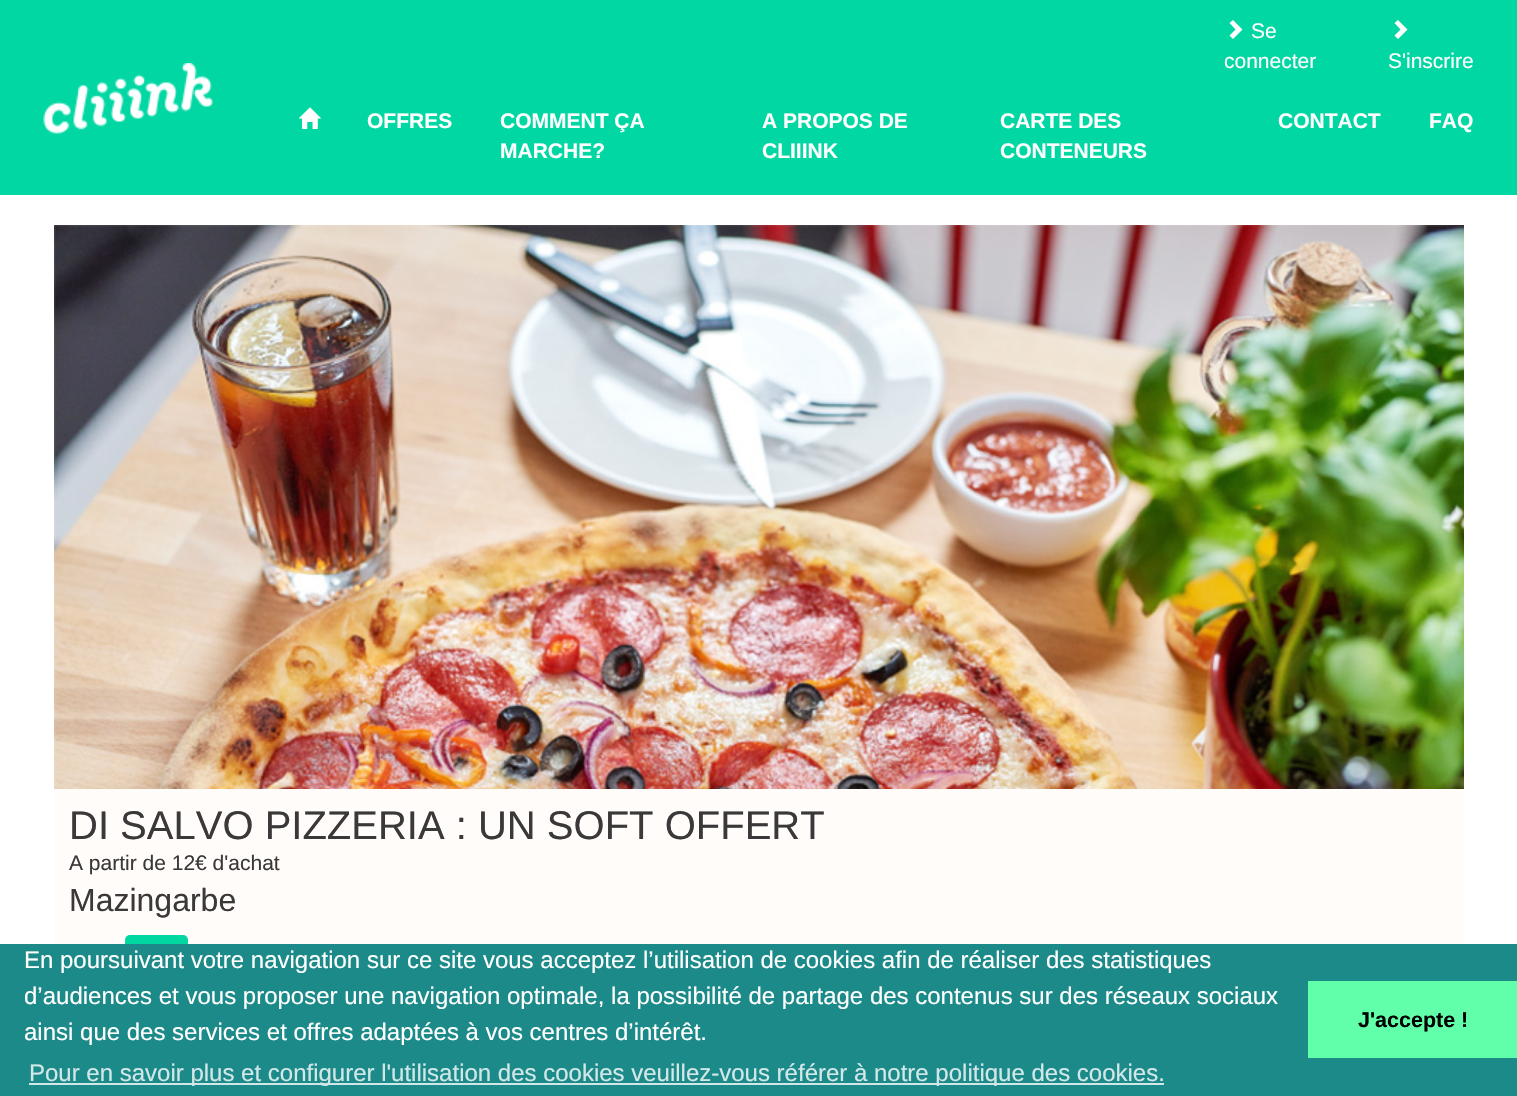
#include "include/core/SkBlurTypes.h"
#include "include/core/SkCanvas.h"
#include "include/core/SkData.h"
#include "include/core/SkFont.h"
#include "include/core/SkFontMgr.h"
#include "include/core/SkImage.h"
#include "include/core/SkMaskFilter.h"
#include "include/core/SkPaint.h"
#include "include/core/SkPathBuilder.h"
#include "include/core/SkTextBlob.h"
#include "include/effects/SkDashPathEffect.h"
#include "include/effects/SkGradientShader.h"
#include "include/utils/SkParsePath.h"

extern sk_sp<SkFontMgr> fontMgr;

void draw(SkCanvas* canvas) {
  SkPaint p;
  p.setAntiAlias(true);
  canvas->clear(SK_ColorWHITE);
  p.setColor(SkColorSetRGB(1, 215, 163));
  canvas->drawRect(SkRect::MakeLTRB(0, 0, 1517, 195), p);
  canvas->drawImageRect(SkImages::DeferredFromEncodedData(SkData::MakeFromFileName("images/1.png")), SkRect::MakeLTRB(43, 63, 213, 134), SkSamplingOptions());
  p.setColor(SK_ColorWHITE);
  canvas->drawPath(SkPathBuilder().moveTo(1242.5f, 29.5f).lineTo(1233, 39).lineTo(1229.5f, 35.5f).lineTo(1235.5f, 29.5f).lineTo(1229.5f, 23).lineTo(1233, 20).close().detach(), p);
  canvas->drawPath(SkPathBuilder().moveTo(1407.5f, 29.5f).lineTo(1398, 39).lineTo(1394.5f, 35.5f).lineTo(1400.5f, 29.5f).lineTo(1394.5f, 23).lineTo(1398, 20).close().detach(), p);
  canvas->drawImageRect(SkImages::DeferredFromEncodedData(SkData::MakeFromFileName("images/2.png")), SkRect::MakeLTRB(298, 107, 321, 129), SkSamplingOptions());
  canvas->drawImageRect(SkImages::DeferredFromEncodedData(SkData::MakeFromFileName("images/3.png")), SkRect::MakeLTRB(54, 225, 1464, 789), SkSamplingOptions());
  p.setColor(SkColorSetRGB(255, 252, 250));
  canvas->drawRect(SkRect::MakeLTRB(54, 789, 1464, 944), p);
  p.setColor(SkColorSetRGB(1, 215, 161));
  canvas->drawRoundRect(SkRect::MakeLTRB(125, 935, 188, 968), 5, 5, p);
  p.setColor(SkColorSetRGB(29, 138, 138));
  canvas->drawRect(SkRect::MakeLTRB(0, 944, 1517, 1096), p);
  p.setColor(SkColorSetRGB(210, 232, 232));
  canvas->drawRect(SkRect::MakeLTRB(29, 1083, 1164, 1085), p);
  p.setColor(SkColorSetRGB(98, 255, 170));
  canvas->drawRect(SkRect::MakeLTRB(1308, 981, 1517, 1058), p);
  SkFont font1(fontMgr->matchFamilyStyle("Liberation Sans", SkFontStyle::Normal()), 21);
  font1.setSubpixel(true);
  p.setColor(SK_ColorWHITE);
  canvas->drawString("Se", 1251, 38, font1, p);
  canvas->drawString("connecter", 1224, 68, font1, p);
  canvas->drawString("S'inscrire", 1388, 68, font1, p);
  SkFont font2(fontMgr->matchFamilyStyle("Liberation Sans", SkFontStyle::Bold()), 21);
  font2.setSubpixel(true);
  canvas->drawString("OFFRES", 367, 128, font2, p);
  canvas->drawString("COMMENT ÇA", 500, 128, font2, p);
  canvas->drawString("MARCHE?", 500, 158, font2, p);
  canvas->drawString("A PROPOS DE", 762, 128, font2, p);
  canvas->drawString("CLIIINK", 762, 158, font2, p);
  canvas->drawString("CARTE DES", 1000, 128, font2, p);
  canvas->drawString("CONTENEURS", 1000, 158, font2, p);
  canvas->drawString("CONTACT", 1278, 128, font2, p);
  canvas->drawString("FAQ", 1429, 128, font2, p);
  SkFont font3(fontMgr->matchFamilyStyle("Liberation Sans", SkFontStyle::Normal()), 40);
  font3.setSubpixel(true);
  p.setColor(SkColorSetRGB(58, 56, 56));
  canvas->drawString("DI SALVO PIZZERIA : UN SOFT OFFERT", 69, 839, font3, p);
  canvas->drawString("A partir de 12€ d'achat", 69, 870, font1, p);
  SkFont font4(fontMgr->matchFamilyStyle("Liberation Sans", SkFontStyle::Normal()), 32);
  font4.setSubpixel(true);
  canvas->drawString("Mazingarbe", 69, 911, font4, p);
  SkFont font5(fontMgr->matchFamilyStyle("Liberation Sans", SkFontStyle::Normal()), 24);
  font5.setSubpixel(true);
  p.setColor(SK_ColorWHITE);
  canvas->drawString("En poursuivant votre navigation sur ce site vous acceptez l’utilisation de cookies afin de réaliser des statistiques", 24, 968, font5, p);
  canvas->drawString("d’audiences et vous proposer une navigation optimale, la possibilité de partage des contenus sur des réseaux sociaux", 24, 1004, font5, p);
  canvas->drawString("ainsi que des services et offres adaptées à vos centres d’intérêt.", 24, 1040, font5, p);
  p.setColor(SkColorSetRGB(210, 232, 232));
  canvas->drawString("Pour en savoir plus et configurer l'utilisation des cookies veuillez-vous référer à notre politique des cookies.", 29, 1081, font5, p);
  SkFont font6(fontMgr->matchFamilyStyle("Liberation Sans", SkFontStyle::Bold()), 21.5f);
  font6.setSubpixel(true);
  p.setColor(SK_ColorBLACK);
  canvas->drawString("J'accepte !", 1358, 1027, font6, p);
}
